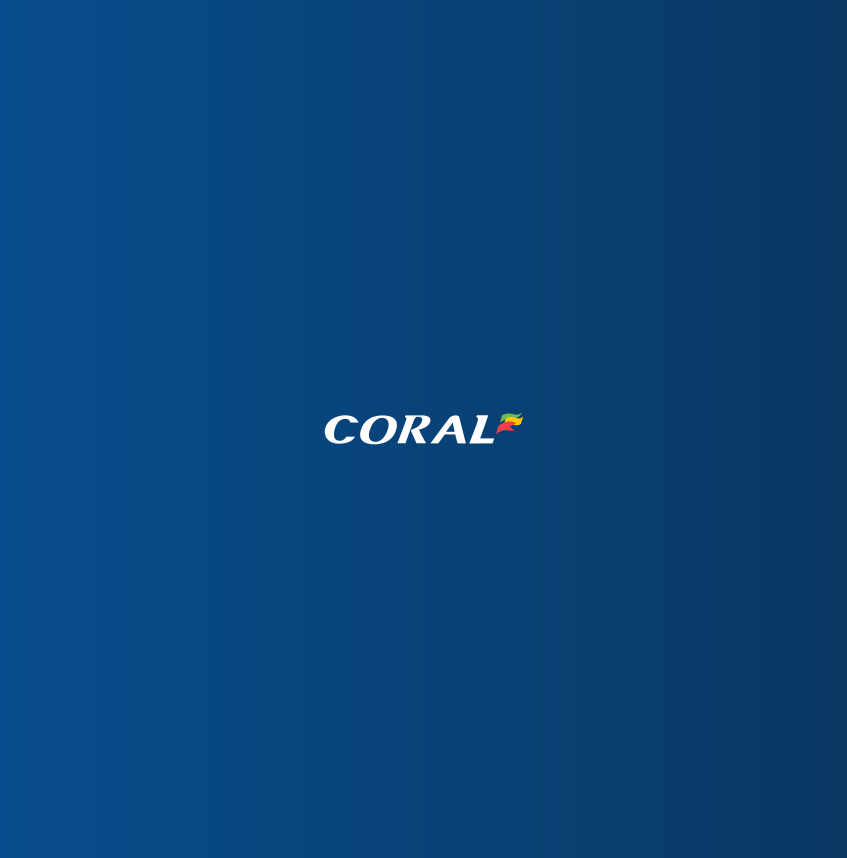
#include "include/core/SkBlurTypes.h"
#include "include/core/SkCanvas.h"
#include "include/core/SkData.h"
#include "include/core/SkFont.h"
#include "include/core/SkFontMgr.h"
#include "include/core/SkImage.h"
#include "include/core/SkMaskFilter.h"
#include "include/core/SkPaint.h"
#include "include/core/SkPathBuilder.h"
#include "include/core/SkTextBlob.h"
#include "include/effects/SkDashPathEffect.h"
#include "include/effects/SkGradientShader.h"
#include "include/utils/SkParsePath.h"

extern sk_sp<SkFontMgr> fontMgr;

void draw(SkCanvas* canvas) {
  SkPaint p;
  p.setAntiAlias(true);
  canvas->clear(SK_ColorWHITE);
  {
    const SkColor colors[] = {SkColorSetRGB(8, 77, 141), SkColorSetRGB(9, 56, 99)};
    const float stops[] = {0, 1};
    const SkPoint ends[] = {{0, 429}, {847, 429}};
    p.setShader(SkGradientShader::MakeLinear(ends, colors, stops, 2, SkTileMode::kClamp));
    p.setAlpha(255);
  }
  canvas->drawRect(SkRect::MakeLTRB(0, 0, 847, 858), p);
  canvas->drawImageRect(SkImages::DeferredFromEncodedData(SkData::MakeFromFileName("images/1.png")), SkRect::MakeLTRB(324, 413, 524, 445), SkSamplingOptions());
}
